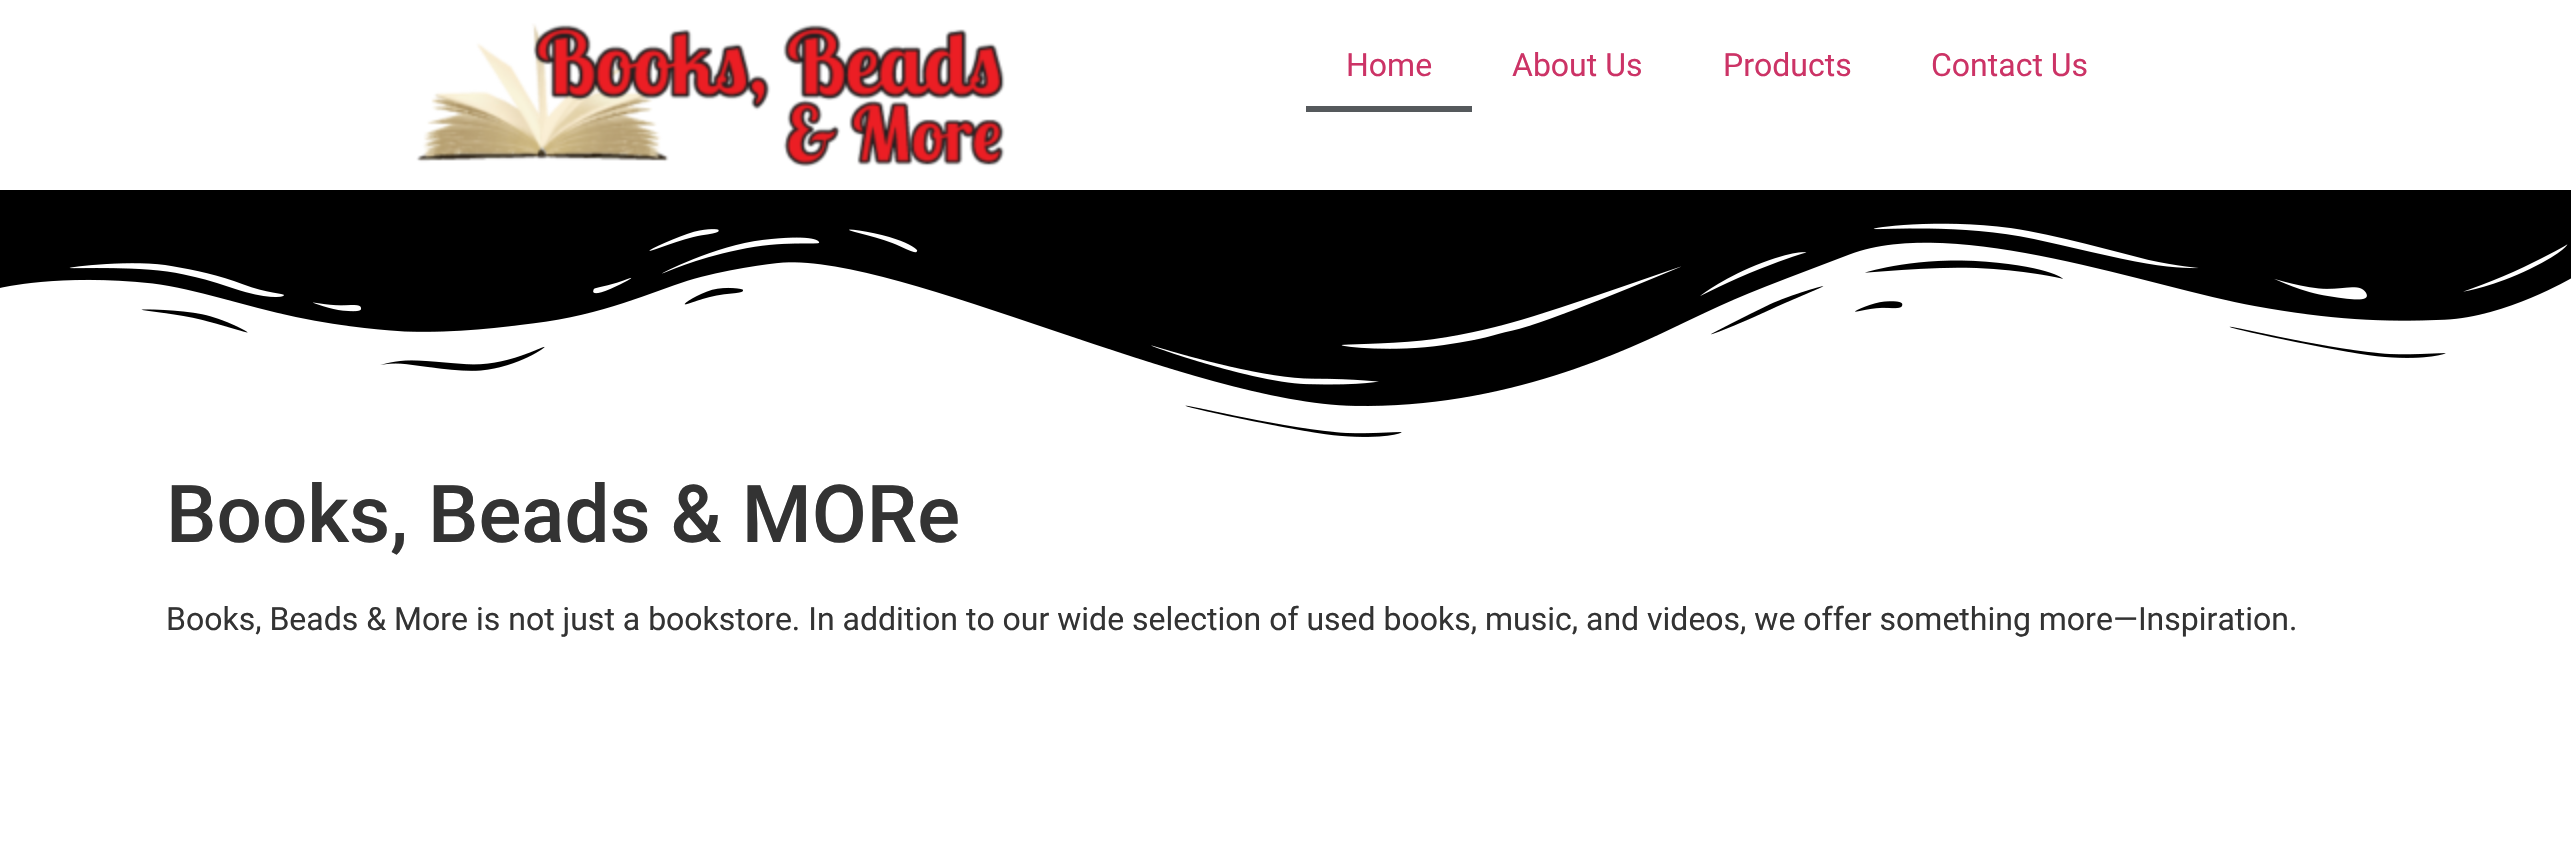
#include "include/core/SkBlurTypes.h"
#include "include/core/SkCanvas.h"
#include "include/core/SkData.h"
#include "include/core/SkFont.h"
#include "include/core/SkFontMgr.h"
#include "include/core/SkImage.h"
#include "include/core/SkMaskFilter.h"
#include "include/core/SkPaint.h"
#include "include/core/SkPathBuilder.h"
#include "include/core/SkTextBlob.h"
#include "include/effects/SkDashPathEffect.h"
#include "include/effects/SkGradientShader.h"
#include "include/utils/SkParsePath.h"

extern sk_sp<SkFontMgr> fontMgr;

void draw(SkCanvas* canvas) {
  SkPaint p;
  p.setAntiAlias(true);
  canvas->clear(SK_ColorWHITE);
  canvas->drawImageRect(SkImages::DeferredFromEncodedData(SkData::MakeFromFileName("images/1.png")), SkRect::MakeLTRB(416, 23, 1005, 167), SkSamplingOptions());
  p.setColor(SkColorSetRGB(85, 89, 92));
  canvas->drawRect(SkRect::MakeLTRB(1306, 106, 1472, 112), p);
  canvas->drawImageRect(SkImages::DeferredFromEncodedData(SkData::MakeFromFileName("images/2.png")), SkRect::MakeLTRB(0, 190, 2571, 437), SkSamplingOptions());
  SkFont font1(fontMgr->matchFamilyStyle("Roboto", SkFontStyle::Normal()), 32);
  font1.setSubpixel(true);
  p.setColor(SkColorSetRGB(204, 51, 102));
  canvas->drawString("Home", 1346, 76, font1, p);
  canvas->drawString("About Us", 1512, 76, font1, p);
  canvas->drawString("Products", 1723, 76, font1, p);
  canvas->drawString("Contact Us", 1931, 76, font1, p);
  SkFont font2(fontMgr->matchFamilyStyle("Roboto", SkFontStyle(500, SkFontStyle::kNormal_Width, SkFontStyle::kUpright_Slant)), 80);
  font2.setSubpixel(true);
  p.setColor(SkColorSetRGB(51, 51, 51));
  canvas->drawString("Books, Beads & MORe", 166, 542, font2, p);
  canvas->drawString("Books, Beads & More is not just a bookstore. In addition to our wide selection of used books, music, and videos, we offer something more—Inspiration.", 166, 630, font1, p);
}
